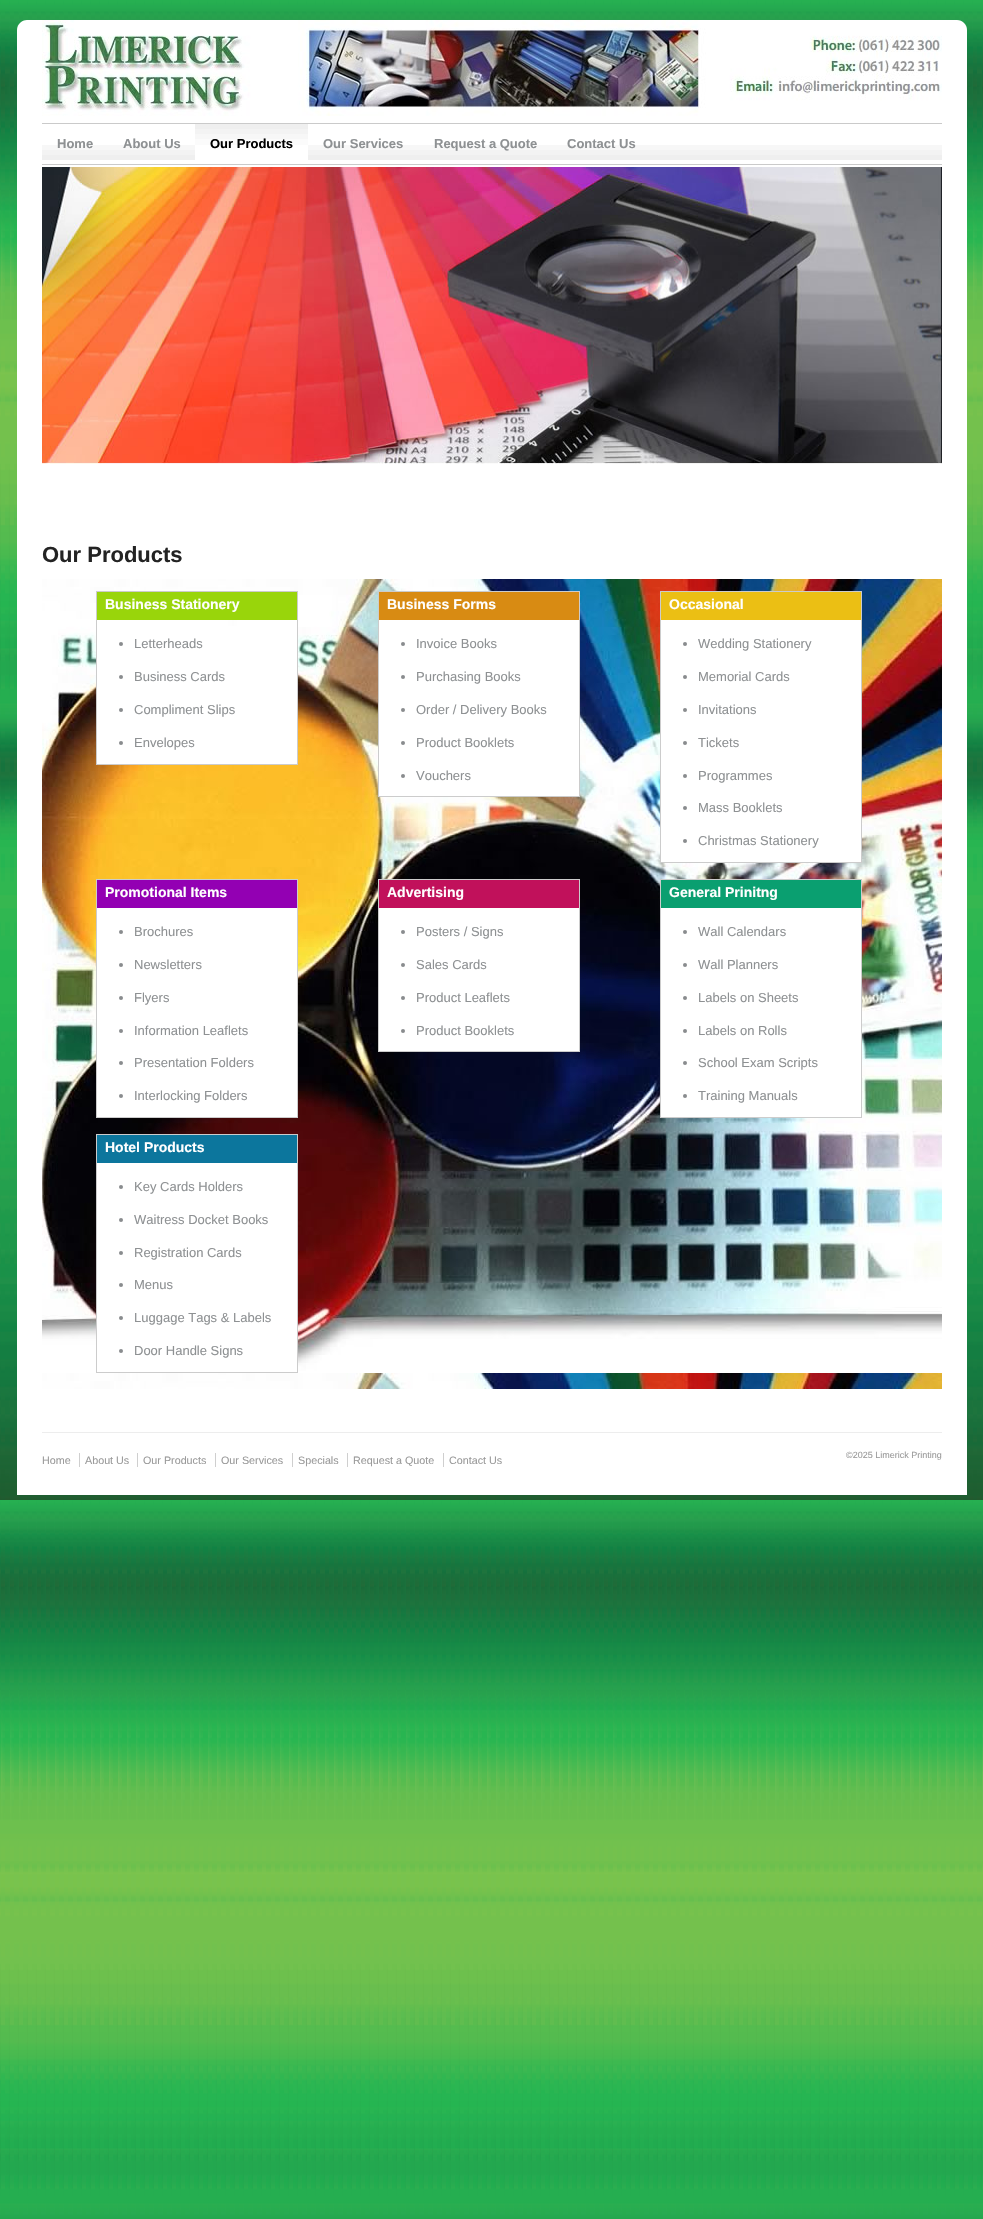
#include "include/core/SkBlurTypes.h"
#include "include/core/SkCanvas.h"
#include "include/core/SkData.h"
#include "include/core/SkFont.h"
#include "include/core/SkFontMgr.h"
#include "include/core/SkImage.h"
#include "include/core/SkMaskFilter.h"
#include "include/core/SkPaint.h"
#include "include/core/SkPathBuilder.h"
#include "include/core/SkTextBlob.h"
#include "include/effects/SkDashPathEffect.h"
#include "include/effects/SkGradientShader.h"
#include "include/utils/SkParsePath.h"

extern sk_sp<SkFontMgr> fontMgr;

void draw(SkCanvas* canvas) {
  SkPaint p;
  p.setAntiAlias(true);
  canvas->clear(SK_ColorWHITE);
  canvas->drawImageRect(SkImages::DeferredFromEncodedData(SkData::MakeFromFileName("images/1.png")), SkRect::MakeLTRB(0, 0, 983, 2219), SkSamplingOptions());
  p.setColor(SK_ColorWHITE);
  canvas->drawPath(SkPathBuilder().moveTo(27, 20).lineTo(957, 20).cubicTo(962.5f, 20, 967, 24.5f, 967, 30).lineTo(967, 1495).lineTo(17, 1495).lineTo(17, 30).cubicTo(17, 24.5f, 21.5f, 20, 27, 20).close().detach(), p);
  canvas->drawImageRect(SkImages::DeferredFromEncodedData(SkData::MakeFromFileName("images/2.png")), SkRect::MakeLTRB(42, 20, 942, 116), SkSamplingOptions());
  canvas->drawImageRect(SkImages::DeferredFromEncodedData(SkData::MakeFromFileName("images/3.png")), SkRect::MakeLTRB(42, 145, 942, 160), SkSamplingOptions());
  p.setColor(SkColorSetRGB(202, 202, 202));
  canvas->drawRect(SkRect::MakeLTRB(42, 123, 942, 124), p);
  canvas->drawRect(SkRect::MakeLTRB(42, 164, 942, 165), p);
  canvas->drawImageRect(SkImages::DeferredFromEncodedData(SkData::MakeFromFileName("images/4.png")), SkRect::MakeLTRB(195, 124, 308, 160), SkSamplingOptions());
  canvas->drawImageRect(SkImages::DeferredFromEncodedData(SkData::MakeFromFileName("images/5.png")), SkRect::MakeLTRB(42, 167, 942, 464), SkSamplingOptions());
  canvas->drawImageRect(SkImages::DeferredFromEncodedData(SkData::MakeFromFileName("images/6.png")), SkRect::MakeLTRB(42, 579, 942, 1389), SkSamplingOptions());
  p.setColor(SK_ColorWHITE);
  canvas->drawRect(SkRect::MakeLTRB(97, 626, 297, 764), p);
  p.setStyle(SkPaint::kStroke_Style);
  p.setStrokeWidth(1);
  p.setColor(SkColorSetRGB(204, 204, 204));
  canvas->drawRect(SkRect::MakeLTRB(96.5f, 591.5f, 297.5f, 764.5f), p);
  p.setStyle(SkPaint::kFill_Style);
  p.setColor(SkColorSetRGB(153, 213, 11));
  canvas->drawRect(SkRect::MakeLTRB(97, 592, 297, 620), p);
  p.setColor(SkColorSetRGB(137, 140, 142));
  canvas->drawCircle(121, 644, 2, p);
  canvas->drawCircle(121, 677, 2, p);
  canvas->drawCircle(121, 710, 2, p);
  canvas->drawCircle(121, 743, 2, p);
  p.setColor(SK_ColorWHITE);
  canvas->drawRect(SkRect::MakeLTRB(379, 620, 579, 796), p);
  p.setStyle(SkPaint::kStroke_Style);
  p.setColor(SkColorSetRGB(204, 204, 204));
  canvas->drawRect(SkRect::MakeLTRB(378.5f, 591.5f, 579.5f, 796.5f), p);
  p.setStyle(SkPaint::kFill_Style);
  p.setColor(SkColorSetRGB(216, 139, 19));
  canvas->drawRect(SkRect::MakeLTRB(379, 592, 579, 620), p);
  p.setColor(SkColorSetRGB(137, 140, 142));
  canvas->drawCircle(403, 644, 2, p);
  canvas->drawCircle(403, 677, 2, p);
  canvas->drawCircle(403, 710, 2, p);
  canvas->drawCircle(403, 743, 2, p);
  canvas->drawCircle(403, 776, 2, p);
  p.setColor(SK_ColorWHITE);
  canvas->drawRect(SkRect::MakeLTRB(661, 620, 861, 862), p);
  p.setStyle(SkPaint::kStroke_Style);
  p.setColor(SkColorSetRGB(204, 204, 204));
  canvas->drawRect(SkRect::MakeLTRB(660.5f, 591.5f, 861.5f, 862.5f), p);
  p.setStyle(SkPaint::kFill_Style);
  p.setColor(SkColorSetRGB(235, 191, 20));
  canvas->drawRect(SkRect::MakeLTRB(661, 592, 861, 620), p);
  p.setColor(SkColorSetRGB(137, 140, 142));
  canvas->drawCircle(685, 644, 2, p);
  canvas->drawCircle(685, 677, 2, p);
  canvas->drawCircle(685, 710, 2, p);
  canvas->drawCircle(685, 743, 2, p);
  canvas->drawCircle(685, 776, 2, p);
  canvas->drawCircle(685, 808, 2, p);
  canvas->drawCircle(685, 841, 2, p);
  p.setColor(SK_ColorWHITE);
  canvas->drawRect(SkRect::MakeLTRB(97, 908, 297, 1117), p);
  p.setStyle(SkPaint::kStroke_Style);
  p.setColor(SkColorSetRGB(204, 204, 204));
  canvas->drawRect(SkRect::MakeLTRB(96.5f, 879.5f, 297.5f, 1117.5f), p);
  p.setStyle(SkPaint::kFill_Style);
  p.setColor(SkColorSetRGB(147, 0, 179));
  canvas->drawRect(SkRect::MakeLTRB(97, 880, 297, 908), p);
  p.setColor(SkColorSetRGB(137, 140, 142));
  canvas->drawCircle(121, 932, 2, p);
  canvas->drawCircle(121, 965, 2, p);
  canvas->drawCircle(121, 998, 2, p);
  canvas->drawCircle(121, 1031, 2, p);
  canvas->drawCircle(121, 1063, 2, p);
  canvas->drawCircle(121, 1096, 2, p);
  p.setColor(SK_ColorWHITE);
  canvas->drawRect(SkRect::MakeLTRB(379, 908, 579, 1051), p);
  p.setStyle(SkPaint::kStroke_Style);
  p.setColor(SkColorSetRGB(204, 204, 204));
  canvas->drawRect(SkRect::MakeLTRB(378.5f, 879.5f, 579.5f, 1051.5f), p);
  p.setStyle(SkPaint::kFill_Style);
  p.setColor(SkColorSetRGB(193, 17, 91));
  canvas->drawRect(SkRect::MakeLTRB(379, 880, 579, 908), p);
  p.setColor(SkColorSetRGB(137, 140, 142));
  canvas->drawCircle(403, 932, 2, p);
  canvas->drawCircle(403, 965, 2, p);
  canvas->drawCircle(403, 998, 2, p);
  canvas->drawCircle(403, 1031, 2, p);
  p.setColor(SK_ColorWHITE);
  canvas->drawRect(SkRect::MakeLTRB(661, 908, 861, 1117), p);
  p.setStyle(SkPaint::kStroke_Style);
  p.setColor(SkColorSetRGB(204, 204, 204));
  canvas->drawRect(SkRect::MakeLTRB(660.5f, 879.5f, 861.5f, 1117.5f), p);
  p.setStyle(SkPaint::kFill_Style);
  p.setColor(SkColorSetRGB(10, 159, 112));
  canvas->drawRect(SkRect::MakeLTRB(661, 880, 861, 908), p);
  p.setColor(SkColorSetRGB(137, 140, 142));
  canvas->drawCircle(685, 932, 2, p);
  canvas->drawCircle(685, 965, 2, p);
  canvas->drawCircle(685, 998, 2, p);
  canvas->drawCircle(685, 1031, 2, p);
  canvas->drawCircle(685, 1063, 2, p);
  canvas->drawCircle(685, 1096, 2, p);
  p.setColor(SK_ColorWHITE);
  canvas->drawRect(SkRect::MakeLTRB(97, 1163, 297, 1372), p);
  p.setStyle(SkPaint::kStroke_Style);
  p.setColor(SkColorSetRGB(204, 204, 204));
  canvas->drawRect(SkRect::MakeLTRB(96.5f, 1134.5f, 297.5f, 1372.5f), p);
  p.setStyle(SkPaint::kFill_Style);
  p.setColor(SkColorSetRGB(12, 118, 157));
  canvas->drawRect(SkRect::MakeLTRB(97, 1135, 297, 1163), p);
  p.setColor(SkColorSetRGB(137, 140, 142));
  canvas->drawCircle(121, 1187, 2, p);
  canvas->drawCircle(121, 1220, 2, p);
  canvas->drawCircle(121, 1253, 2, p);
  canvas->drawCircle(121, 1285, 2, p);
  canvas->drawCircle(121, 1318, 2, p);
  canvas->drawCircle(121, 1351, 2, p);
  p.setColor(SkColorSetRGB(237, 237, 237));
  canvas->drawRect(SkRect::MakeLTRB(42, 1432, 942, 1433), p);
  p.setColor(SkColorSetRGB(207, 207, 207));
  canvas->drawRect(SkRect::MakeLTRB(79, 1453, 80, 1467), p);
  canvas->drawRect(SkRect::MakeLTRB(137, 1453, 138, 1467), p);
  canvas->drawRect(SkRect::MakeLTRB(215, 1453, 216, 1467), p);
  canvas->drawRect(SkRect::MakeLTRB(292, 1453, 293, 1467), p);
  canvas->drawRect(SkRect::MakeLTRB(347, 1453, 348, 1467), p);
  canvas->drawRect(SkRect::MakeLTRB(443, 1453, 444, 1467), p);
  SkFont font1(fontMgr->matchFamilyStyle("Liberation Sans", SkFontStyle::Bold()), 13);
  font1.setSubpixel(true);
  p.setColor(SkColorSetRGB(142, 145, 147));
  canvas->drawString("Home", 57, 148, font1, p);
  canvas->drawString("About Us", 123, 148, font1, p);
  p.setColor(SK_ColorBLACK);
  canvas->drawString("Our Products", 210, 148, font1, p);
  p.setColor(SkColorSetRGB(142, 145, 147));
  canvas->drawString("Our Services", 323, 148, font1, p);
  canvas->drawString("Request a Quote", 434, 148, font1, p);
  canvas->drawString("Contact Us", 567, 148, font1, p);
  SkFont font2(fontMgr->matchFamilyStyle("Liberation Sans", SkFontStyle::Bold()), 22);
  font2.setSubpixel(true);
  p.setColor(SkColorSetRGB(35, 35, 35));
  canvas->drawString("Our Products", 42, 562, font2, p);
  SkFont font3(fontMgr->matchFamilyStyle("Liberation Sans", SkFontStyle::Bold()), 14);
  font3.setSubpixel(true);
  p.setColor(SK_ColorWHITE);
  canvas->drawString("Business Stationery", 105, 609, font3, p);
  SkFont font4(fontMgr->matchFamilyStyle("Liberation Sans", SkFontStyle::Normal()), 13);
  font4.setSubpixel(true);
  p.setColor(SkColorSetRGB(142, 145, 147));
  canvas->drawString("Letterheads", 134, 648, font4, p);
  canvas->drawString("Business Cards", 134, 681, font4, p);
  canvas->drawString("Compliment Slips", 134, 714, font4, p);
  canvas->drawString("Envelopes", 134, 747, font4, p);
  p.setColor(SK_ColorWHITE);
  canvas->drawString("Business Forms", 387, 609, font3, p);
  p.setColor(SkColorSetRGB(142, 145, 147));
  canvas->drawString("Invoice Books", 416, 648, font4, p);
  canvas->drawString("Purchasing Books", 416, 681, font4, p);
  canvas->drawString("Order / Delivery Books", 416, 714, font4, p);
  canvas->drawString("Product Booklets", 416, 747, font4, p);
  canvas->drawString("Vouchers", 416, 780, font4, p);
  p.setColor(SK_ColorWHITE);
  canvas->drawString("Occasional", 669, 609, font3, p);
  p.setColor(SkColorSetRGB(142, 145, 147));
  canvas->drawString("Wedding Stationery", 698, 648, font4, p);
  canvas->drawString("Memorial Cards", 698, 681, font4, p);
  canvas->drawString("Invitations", 698, 714, font4, p);
  canvas->drawString("Tickets", 698, 747, font4, p);
  canvas->drawString("Programmes", 698, 780, font4, p);
  canvas->drawString("Mass Booklets", 698, 812, font4, p);
  canvas->drawString("Christmas Stationery", 698, 845, font4, p);
  p.setColor(SK_ColorWHITE);
  canvas->drawString("Promotional Items", 105, 897, font3, p);
  p.setColor(SkColorSetRGB(142, 145, 147));
  canvas->drawString("Brochures", 134, 936, font4, p);
  canvas->drawString("Newsletters", 134, 969, font4, p);
  canvas->drawString("Flyers", 134, 1002, font4, p);
  canvas->drawString("Information Leaflets", 134, 1035, font4, p);
  canvas->drawString("Presentation Folders", 134, 1067, font4, p);
  canvas->drawString("Interlocking Folders", 134, 1100, font4, p);
  p.setColor(SK_ColorWHITE);
  canvas->drawString("Advertising", 387, 897, font3, p);
  p.setColor(SkColorSetRGB(142, 145, 147));
  canvas->drawString("Posters / Signs", 416, 936, font4, p);
  canvas->drawString("Sales Cards", 416, 969, font4, p);
  canvas->drawString("Product Leaflets", 416, 1002, font4, p);
  canvas->drawString("Product Booklets", 416, 1035, font4, p);
  p.setColor(SK_ColorWHITE);
  canvas->drawString("General Prinitng", 669, 897, font3, p);
  p.setColor(SkColorSetRGB(142, 145, 147));
  canvas->drawString("Wall Calendars", 698, 936, font4, p);
  canvas->drawString("Wall Planners", 698, 969, font4, p);
  canvas->drawString("Labels on Sheets", 698, 1002, font4, p);
  canvas->drawString("Labels on Rolls", 698, 1035, font4, p);
  canvas->drawString("School Exam Scripts", 698, 1067, font4, p);
  canvas->drawString("Training Manuals", 698, 1100, font4, p);
  p.setColor(SK_ColorWHITE);
  canvas->drawString("Hotel Products", 105, 1152, font3, p);
  p.setColor(SkColorSetRGB(142, 145, 147));
  canvas->drawString("Key Cards Holders", 134, 1191, font4, p);
  canvas->drawString("Waitress Docket Books", 134, 1224, font4, p);
  canvas->drawString("Registration Cards", 134, 1257, font4, p);
  canvas->drawString("Menus", 134, 1289, font4, p);
  canvas->drawString("Luggage Tags & Labels", 134, 1322, font4, p);
  canvas->drawString("Door Handle Signs", 134, 1355, font4, p);
  SkFont font5(fontMgr->matchFamilyStyle("Liberation Sans", SkFontStyle::Normal()), 10.75f);
  font5.setSubpixel(true);
  p.setColor(SkColorSetRGB(153, 153, 153));
  canvas->drawString("Home", 42, 1464, font5, p);
  canvas->drawString("About Us", 85, 1464, font5, p);
  canvas->drawString("Our Products", 143, 1464, font5, p);
  canvas->drawString("Our Services", 221, 1464, font5, p);
  canvas->drawString("Specials", 298, 1464, font5, p);
  canvas->drawString("Request a Quote", 353, 1464, font5, p);
  canvas->drawString("Contact Us", 449, 1464, font5, p);
  SkFont font6(fontMgr->matchFamilyStyle("Liberation Sans", SkFontStyle::Normal()), 9);
  font6.setSubpixel(true);
  canvas->drawString("©2025 Limerick Printing", 846, 1458, font6, p);
}
